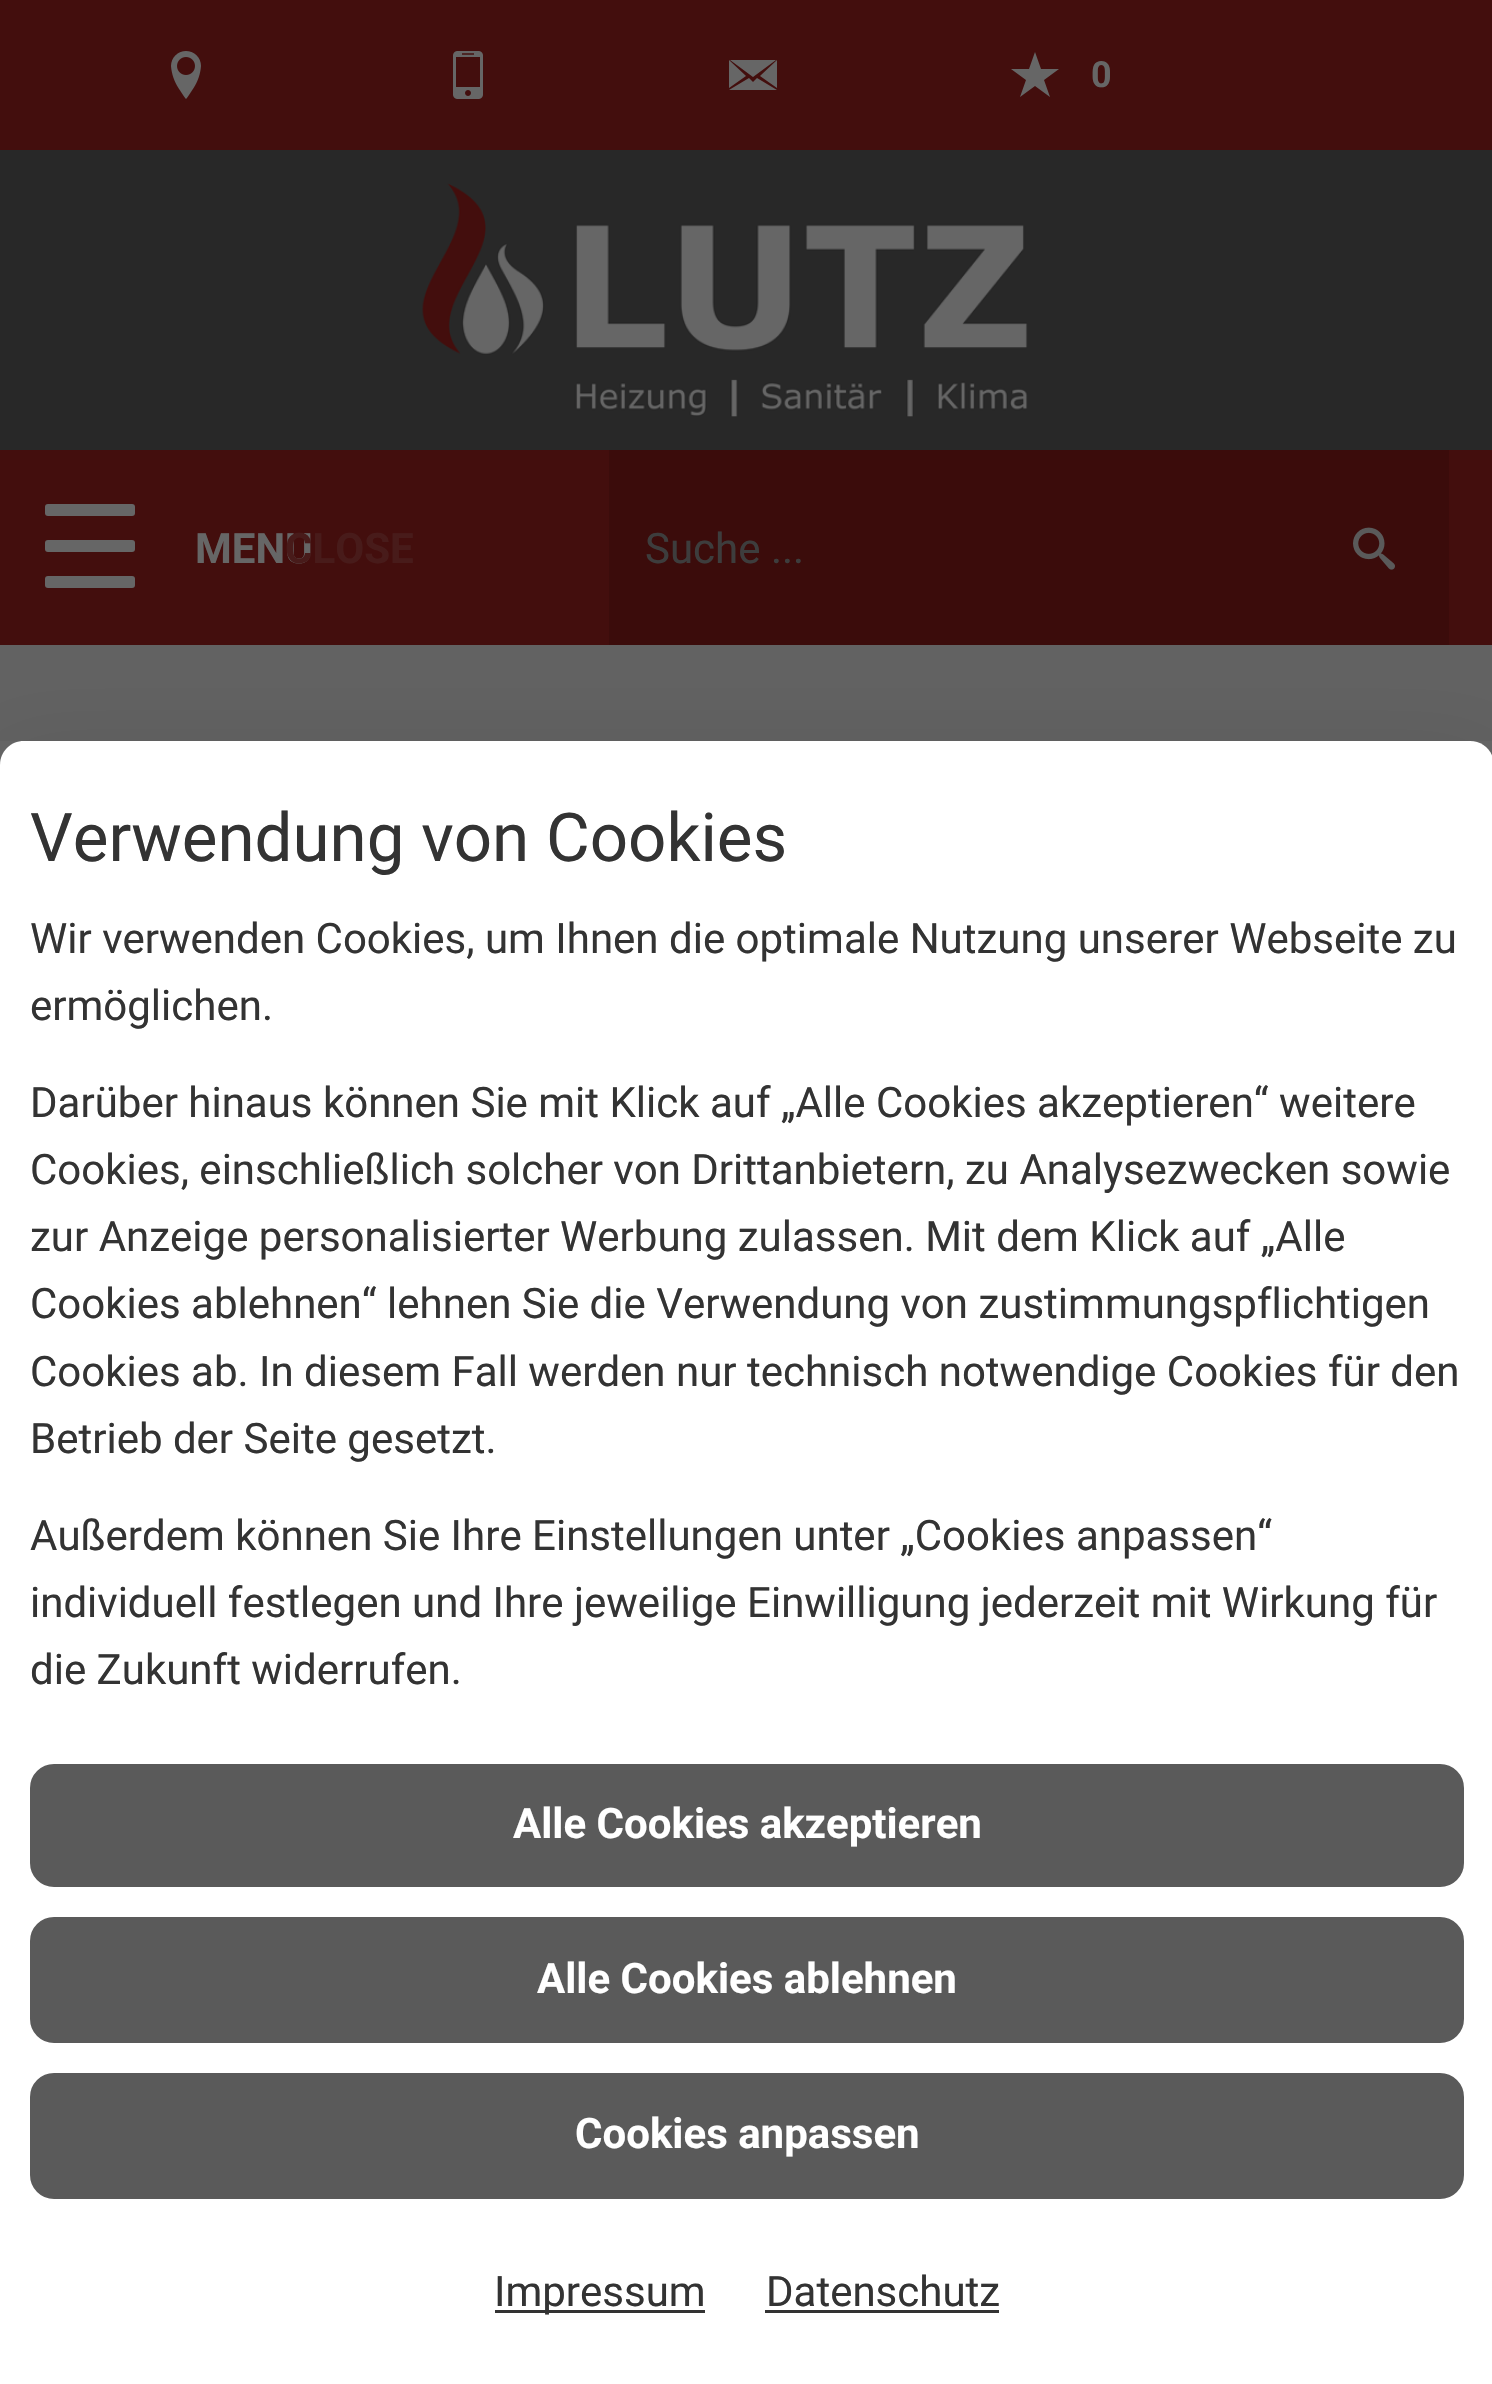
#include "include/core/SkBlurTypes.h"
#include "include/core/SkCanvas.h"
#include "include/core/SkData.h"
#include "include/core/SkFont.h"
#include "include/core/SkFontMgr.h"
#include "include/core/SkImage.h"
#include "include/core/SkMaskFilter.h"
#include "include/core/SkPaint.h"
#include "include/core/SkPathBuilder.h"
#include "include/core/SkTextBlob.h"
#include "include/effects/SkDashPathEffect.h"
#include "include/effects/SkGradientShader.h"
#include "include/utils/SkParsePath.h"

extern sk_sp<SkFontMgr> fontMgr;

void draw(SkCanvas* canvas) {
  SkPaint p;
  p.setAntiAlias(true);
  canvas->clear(SkColorSetRGB(102, 102, 102));
  p.setColor(SkColorSetRGB(67, 14, 13));
  canvas->drawRect(SkRect::MakeLTRB(0, 0, 1492, 150), p);
  canvas->drawImageRect(SkImages::DeferredFromEncodedData(SkData::MakeFromFileName("images/1.png")), SkRect::MakeLTRB(171, 51, 201, 99), SkSamplingOptions());
  canvas->drawImageRect(SkImages::DeferredFromEncodedData(SkData::MakeFromFileName("images/2.png")), SkRect::MakeLTRB(453, 51, 483, 99), SkSamplingOptions());
  p.setColor(SkColorSetRGB(102, 102, 102));
  canvas->drawPath(SkPathBuilder().moveTo(760, 76).lineTo(777, 88).lineTo(777, 60).close().moveTo(729, 60).lineTo(729, 88).lineTo(746, 76).close().moveTo(753, 82).lineTo(749, 78).lineTo(729, 90).lineTo(777, 90).lineTo(757, 78).close().moveTo(776, 60).lineTo(730, 60).lineTo(753, 77).close().detach(), p);
  canvas->drawPath(SkPathBuilder().moveTo(1059, 69).lineTo(1041, 69).lineTo(1035, 52).lineTo(1029, 69).lineTo(1011, 69).lineTo(1026, 80).lineTo(1020, 97).lineTo(1035, 86).lineTo(1050, 97).lineTo(1044, 80).close().detach(), p);
  p.setColor(SkColorSetRGB(40, 40, 40));
  canvas->drawRect(SkRect::MakeLTRB(0, 150, 1492, 450), p);
  canvas->drawImageRect(SkImages::DeferredFromEncodedData(SkData::MakeFromFileName("images/3.png")), SkRect::MakeLTRB(422, 183, 1028, 417), SkSamplingOptions());
  p.setColor(SkColorSetRGB(67, 14, 13));
  canvas->drawRect(SkRect::MakeLTRB(0, 450, 1492, 645), p);
  p.setColor(SkColorSetRGB(102, 102, 102));
  canvas->drawRoundRect(SkRect::MakeLTRB(45, 504, 135, 516), 3, 3, p);
  canvas->drawRoundRect(SkRect::MakeLTRB(45, 540, 135, 552), 3, 3, p);
  canvas->drawRoundRect(SkRect::MakeLTRB(45, 576, 135, 588), 3, 3, p);
  p.setColor(SkColorSetRGB(59, 12, 11));
  canvas->drawRect(SkRect::MakeLTRB(609, 450, 1449, 645), p);
  canvas->drawImageRect(SkImages::DeferredFromEncodedData(SkData::MakeFromFileName("images/4.png")), SkRect::MakeLTRB(1353, 527, 1395, 570), SkSamplingOptions());
  p.setColor(SkColorSetRGB(98, 98, 98));
  canvas->drawRect(SkRect::MakeLTRB(0, 645, 1492, 741), p);
  p.setColor(SkColorSetARGB(26, 0, 0, 0));
  p.setMaskFilter(SkMaskFilter::MakeBlur(kNormal_SkBlurStyle, 42));
  canvas->drawRoundRect(SkRect::MakeLTRB(0, 759, 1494, 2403), 24, 24, p);
  p.setMaskFilter(nullptr);
  p.setColor(SK_ColorWHITE);
  canvas->drawPath(SkPathBuilder().moveTo(24, 741).lineTo(1470, 741).cubicTo(1483.5f, 741, 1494, 751.5f, 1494, 765).lineTo(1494, 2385).lineTo(0, 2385).lineTo(0, 765).cubicTo(0, 751.5f, 10.5f, 741, 24, 741).close().detach(), p);
  p.setColor(SkColorSetRGB(90, 90, 90));
  canvas->drawRoundRect(SkRect::MakeLTRB(31.5f, 1765.5f, 1462.5f, 1885.5f), 22.5f, 22.5f, p);
  p.setStyle(SkPaint::kStroke_Style);
  p.setStrokeWidth(3);
  canvas->drawRoundRect(SkRect::MakeLTRB(31.5f, 1765.5f, 1462.5f, 1885.5f), 22.5f, 22.5f, p);
  p.setStyle(SkPaint::kFill_Style);
  canvas->drawRoundRect(SkRect::MakeLTRB(31.5f, 1918.5f, 1462.5f, 2041.5f), 22.5f, 22.5f, p);
  p.setStyle(SkPaint::kStroke_Style);
  canvas->drawRoundRect(SkRect::MakeLTRB(31.5f, 1918.5f, 1462.5f, 2041.5f), 22.5f, 22.5f, p);
  p.setStyle(SkPaint::kFill_Style);
  canvas->drawRoundRect(SkRect::MakeLTRB(31.5f, 2074.5f, 1462.5f, 2197.5f), 22.5f, 22.5f, p);
  p.setStyle(SkPaint::kStroke_Style);
  canvas->drawRoundRect(SkRect::MakeLTRB(31.5f, 2074.5f, 1462.5f, 2197.5f), 22.5f, 22.5f, p);
  p.setStyle(SkPaint::kFill_Style);
  p.setColor(SkColorSetRGB(51, 51, 51));
  canvas->drawRect(SkRect::MakeLTRB(495, 2310, 705, 2313), p);
  canvas->drawRect(SkRect::MakeLTRB(765, 2310, 999, 2313), p);
  SkFont font1(fontMgr->matchFamilyStyle("Roboto", SkFontStyle::Bold()), 36);
  font1.setSubpixel(true);
  p.setColor(SkColorSetRGB(102, 102, 102));
  canvas->drawString("0", 1091, 87, font1, p);
  SkFont font2(fontMgr->matchFamilyStyle("Roboto", SkFontStyle::Bold()), 42);
  font2.setSubpixel(true);
  canvas->drawString("MENU", 195, 563, font2, p);
  p.setColor(SkColorSetRGB(72, 27, 26));
  canvas->drawString("CLOSE", 285, 563, font2, p);
  SkFont font3(fontMgr->matchFamilyStyle("Roboto", SkFontStyle::Normal()), 42);
  font3.setSubpixel(true);
  p.setColor(SkColorSetRGB(61, 61, 61));
  canvas->drawString("Suche ...", 645, 563, font3, p);
  SkFont font4(fontMgr->matchFamilyStyle("Roboto", SkFontStyle::Normal()), 67.25f);
  font4.setSubpixel(true);
  p.setColor(SkColorSetRGB(51, 51, 51));
  canvas->drawString("Verwendung von Cookies", 30, 861, font4, p);
  canvas->drawString("Wir verwenden Cookies, um Ihnen die optimale Nutzung unserer Webseite zu", 30, 953, font3, p);
  canvas->drawString("ermöglichen.", 30, 1020, font3, p);
  canvas->drawString("Darüber hinaus können Sie mit Klick auf „Alle Cookies akzeptieren“ weitere", 30, 1117, font3, p);
  canvas->drawString("Cookies, einschließlich solcher von Drittanbietern, zu Analysezwecken sowie", 30, 1184, font3, p);
  canvas->drawString("zur Anzeige personalisierter Werbung zulassen. Mit dem Klick auf „Alle", 30, 1251, font3, p);
  canvas->drawString("Cookies ablehnen“ lehnen Sie die Verwendung von zustimmungspflichtigen", 30, 1318, font3, p);
  canvas->drawString("Cookies ab. In diesem Fall werden nur technisch notwendige Cookies für den", 30, 1386, font3, p);
  canvas->drawString("Betrieb der Seite gesetzt.", 30, 1453, font3, p);
  canvas->drawString("Außerdem können Sie Ihre Einstellungen unter „Cookies anpassen“", 30, 1550, font3, p);
  canvas->drawString("individuell festlegen und Ihre jeweilige Einwilligung jederzeit mit Wirkung für", 30, 1617, font3, p);
  canvas->drawString("die Zukunft widerrufen.", 30, 1684, font3, p);
  p.setColor(SK_ColorWHITE);
  canvas->drawString("Alle Cookies akzeptieren", 513, 1838, font2, p);
  canvas->drawString("Alle Cookies ablehnen", 537, 1993, font2, p);
  canvas->drawString("Cookies anpassen", 575, 2148, font2, p);
  p.setColor(SkColorSetRGB(51, 51, 51));
  canvas->drawString("Impressum", 494, 2306, font3, p);
  canvas->drawString("Datenschutz", 766, 2306, font3, p);
}
